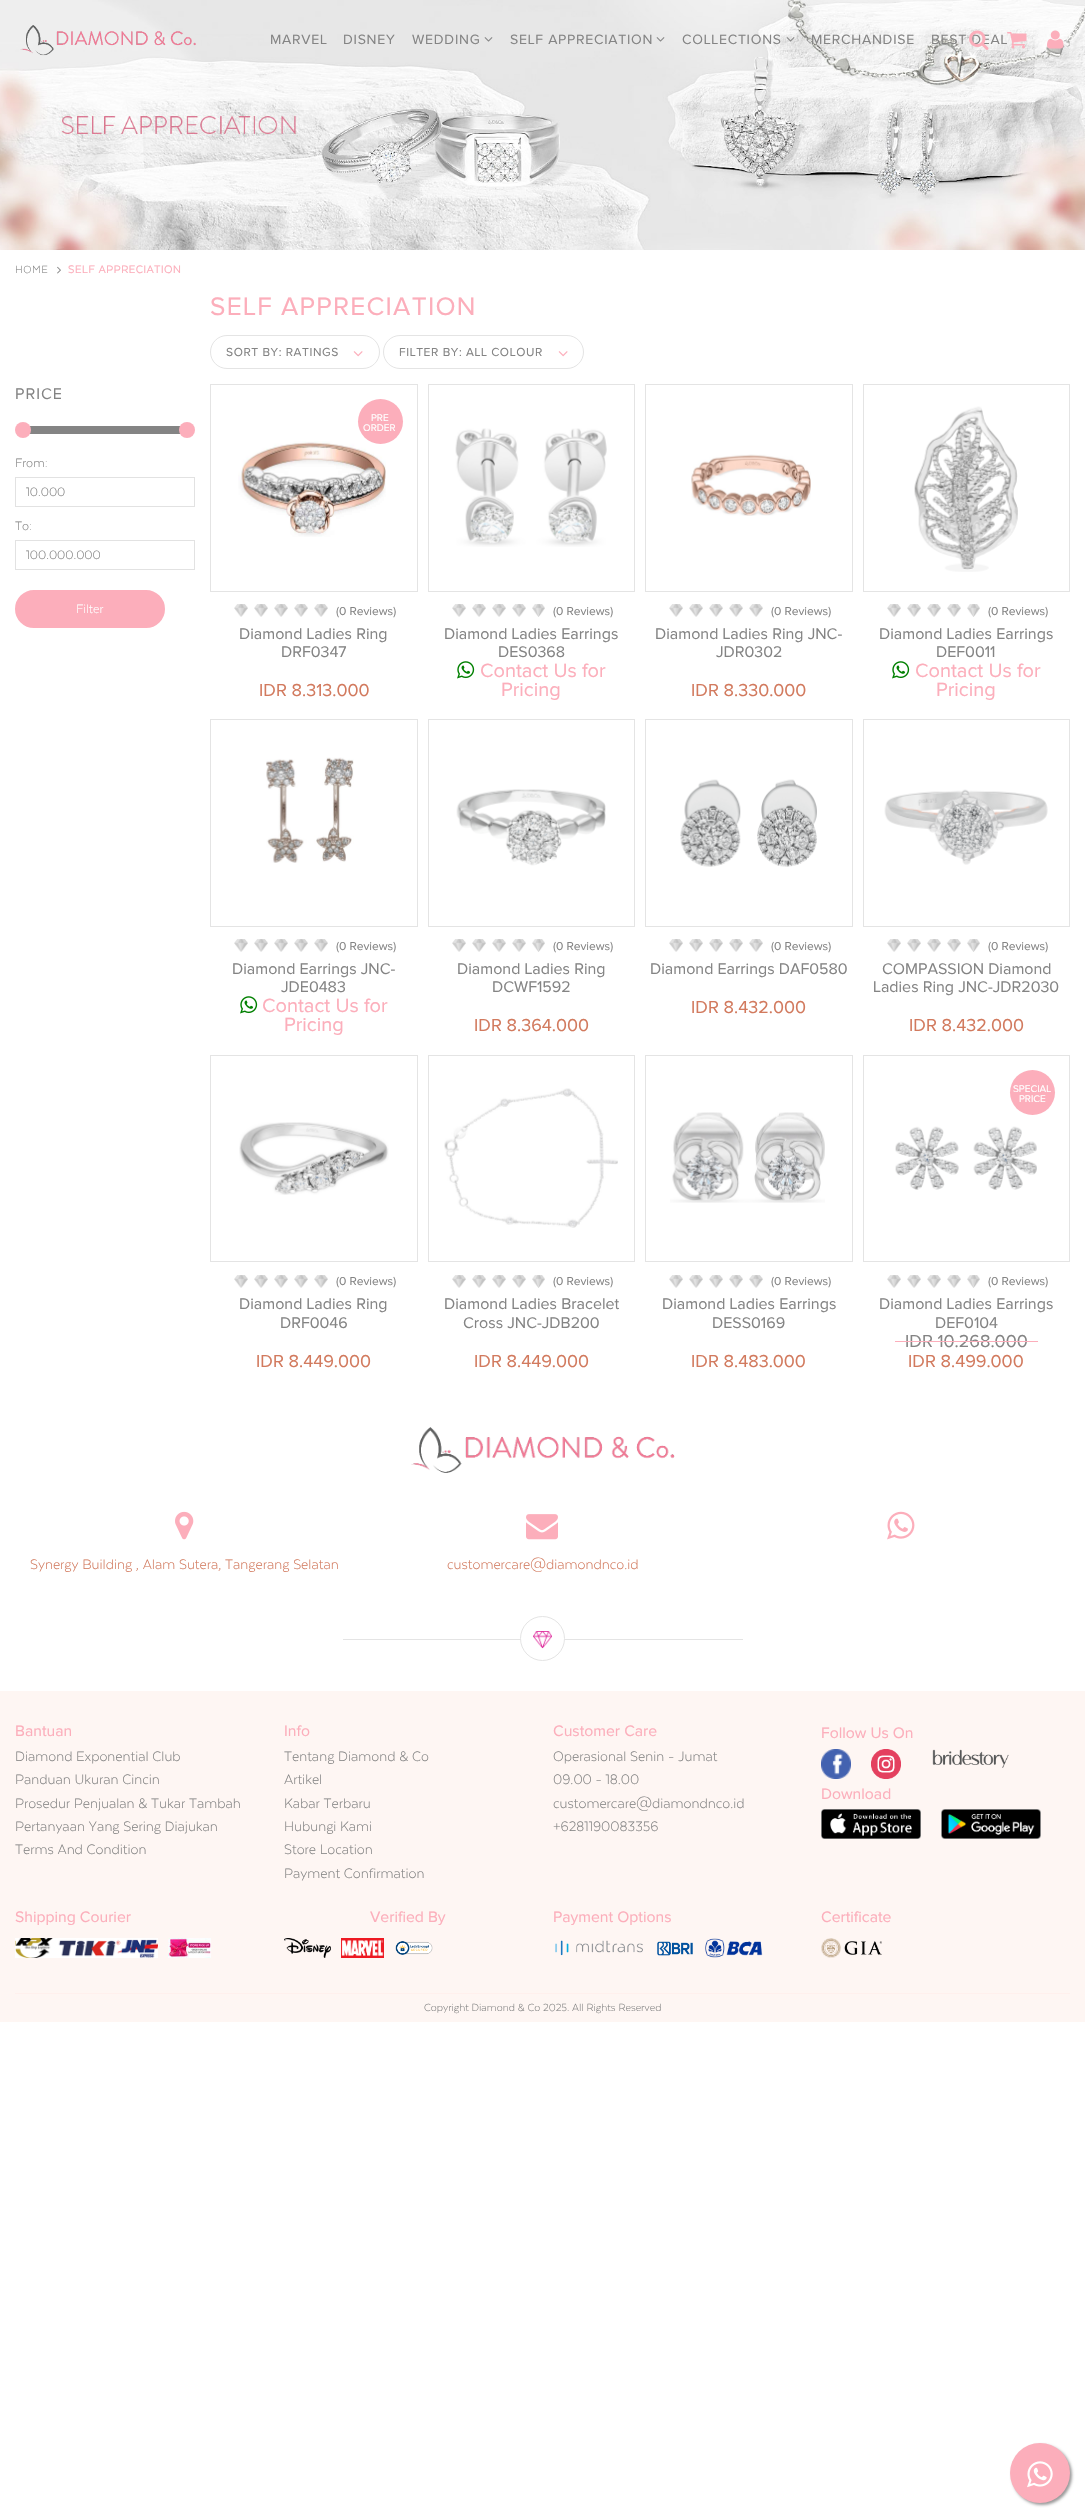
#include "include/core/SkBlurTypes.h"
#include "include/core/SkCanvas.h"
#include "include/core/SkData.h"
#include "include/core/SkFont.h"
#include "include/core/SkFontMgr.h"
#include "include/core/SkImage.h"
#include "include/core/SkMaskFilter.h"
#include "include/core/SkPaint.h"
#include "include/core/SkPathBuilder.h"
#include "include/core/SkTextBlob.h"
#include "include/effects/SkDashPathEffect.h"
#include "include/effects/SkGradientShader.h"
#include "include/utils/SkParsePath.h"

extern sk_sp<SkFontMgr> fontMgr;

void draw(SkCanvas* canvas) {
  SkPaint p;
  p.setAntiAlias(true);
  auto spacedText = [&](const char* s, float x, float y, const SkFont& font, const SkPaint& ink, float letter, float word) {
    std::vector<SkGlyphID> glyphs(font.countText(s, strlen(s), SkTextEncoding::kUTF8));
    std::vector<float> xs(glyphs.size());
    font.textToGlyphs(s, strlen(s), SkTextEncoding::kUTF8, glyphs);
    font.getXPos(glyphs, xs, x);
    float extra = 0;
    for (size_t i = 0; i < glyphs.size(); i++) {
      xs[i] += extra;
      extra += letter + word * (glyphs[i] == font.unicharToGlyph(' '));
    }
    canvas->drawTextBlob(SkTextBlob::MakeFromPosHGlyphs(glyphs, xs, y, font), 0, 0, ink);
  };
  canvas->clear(SK_ColorWHITE);
  canvas->drawImageRect(SkImages::DeferredFromEncodedData(SkData::MakeFromFileName("images/1.png")), SkRect::MakeLTRB(0, 0, 1085, 250), SkSamplingOptions());
  canvas->drawImageRect(SkImages::DeferredFromEncodedData(SkData::MakeFromFileName("images/2.png")), SkRect::MakeLTRB(20, 25, 196, 56), SkSamplingOptions());
  canvas->drawImageRect(SkImages::DeferredFromEncodedData(SkData::MakeFromFileName("images/3.png")), SkRect::MakeLTRB(484, 37, 493, 42), SkSamplingOptions());
  canvas->drawImageRect(SkImages::DeferredFromEncodedData(SkData::MakeFromFileName("images/4.png")), SkRect::MakeLTRB(656, 37, 665, 42), SkSamplingOptions());
  canvas->drawImageRect(SkImages::DeferredFromEncodedData(SkData::MakeFromFileName("images/5.png")), SkRect::MakeLTRB(786, 37, 795, 42), SkSamplingOptions());
  canvas->drawImageRect(SkImages::DeferredFromEncodedData(SkData::MakeFromFileName("images/7.png")), SkRect::MakeLTRB(1007, 32, 1027, 49), SkSamplingOptions());
  canvas->drawImageRect(SkImages::DeferredFromEncodedData(SkData::MakeFromFileName("images/8.png")), SkRect::MakeLTRB(1047, 30, 1064, 49), SkSamplingOptions());
  canvas->drawImageRect(SkImages::DeferredFromEncodedData(SkData::MakeFromFileName("images/9.png")), SkRect::MakeLTRB(57, 266, 61, 274), SkSamplingOptions());
  p.setStyle(SkPaint::kStroke_Style);
  p.setStrokeWidth(1);
  p.setColor(SkColorSetRGB(228, 228, 228));
  canvas->drawRoundRect(SkRect::MakeLTRB(210.5f, 335.5f, 379.5f, 368.5f), 16.5f, 16.5f, p);
  canvas->drawImageRect(SkImages::DeferredFromEncodedData(SkData::MakeFromFileName("images/10.png")), SkRect::MakeLTRB(353, 351, 363, 357), SkSamplingOptions());
  canvas->drawRoundRect(SkRect::MakeLTRB(383.5f, 335.5f, 583.5f, 368.5f), 16.5f, 16.5f, p);
  canvas->drawImageRect(SkImages::DeferredFromEncodedData(SkData::MakeFromFileName("images/10.png")), SkRect::MakeLTRB(558, 351, 568, 357), SkSamplingOptions());
  p.setStyle(SkPaint::kFill_Style);
  p.setColor(SkColorSetRGB(132, 132, 132));
  canvas->drawRect(SkRect::MakeLTRB(23, 426, 187, 434), p);
  p.setColor(SkColorSetRGB(252, 174, 187));
  canvas->drawCircle(23, 430, 8, p);
  canvas->drawCircle(187, 430, 8, p);
  p.setStyle(SkPaint::kStroke_Style);
  p.setColor(SkColorSetRGB(226, 226, 226));
  canvas->drawRect(SkRect::MakeLTRB(15.5f, 477.5f, 194.5f, 506.5f), p);
  canvas->drawRect(SkRect::MakeLTRB(15.5f, 540.5f, 194.5f, 569.5f), p);
  p.setStyle(SkPaint::kFill_Style);
  p.setColor(SkColorSetRGB(252, 174, 187));
  canvas->drawRoundRect(SkRect::MakeLTRB(16, 591, 164, 627), 18, 18, p);
  p.setStyle(SkPaint::kStroke_Style);
  p.setStrokeWidth(2);
  canvas->drawRoundRect(SkRect::MakeLTRB(16, 591, 164, 627), 18, 18, p);
  p.setStrokeWidth(1);
  p.setColor(SkColorSetRGB(228, 228, 228));
  canvas->drawRect(SkRect::MakeLTRB(210.5f, 384.5f, 417.5f, 591.5f), p);
  canvas->drawImageRect(SkImages::DeferredFromEncodedData(SkData::MakeFromFileName("images/11.png")), SkRect::MakeLTRB(238, 441, 386, 537), SkSamplingOptions());
  p.setStyle(SkPaint::kFill_Style);
  p.setColor(SkColorSetRGB(252, 174, 187));
  canvas->drawCircle(380.5f, 421.5f, 22.5f, p);
  canvas->drawImageRect(SkImages::DeferredFromEncodedData(SkData::MakeFromFileName("images/12.png")), SkRect::MakeLTRB(234, 604, 248, 617), SkSamplingOptions());
  canvas->drawImageRect(SkImages::DeferredFromEncodedData(SkData::MakeFromFileName("images/12.png")), SkRect::MakeLTRB(254, 604, 268, 617), SkSamplingOptions());
  canvas->drawImageRect(SkImages::DeferredFromEncodedData(SkData::MakeFromFileName("images/13.png")), SkRect::MakeLTRB(274, 604, 288, 617), SkSamplingOptions());
  canvas->drawImageRect(SkImages::DeferredFromEncodedData(SkData::MakeFromFileName("images/13.png")), SkRect::MakeLTRB(294, 604, 308, 617), SkSamplingOptions());
  canvas->drawImageRect(SkImages::DeferredFromEncodedData(SkData::MakeFromFileName("images/12.png")), SkRect::MakeLTRB(314, 604, 328, 617), SkSamplingOptions());
  p.setStyle(SkPaint::kStroke_Style);
  p.setColor(SkColorSetRGB(228, 228, 228));
  canvas->drawRect(SkRect::MakeLTRB(428.5f, 384.5f, 634.5f, 591.5f), p);
  canvas->drawImageRect(SkImages::DeferredFromEncodedData(SkData::MakeFromFileName("images/14.png")), SkRect::MakeLTRB(455, 428, 607, 547), SkSamplingOptions());
  canvas->drawImageRect(SkImages::DeferredFromEncodedData(SkData::MakeFromFileName("images/12.png")), SkRect::MakeLTRB(452, 604, 466, 617), SkSamplingOptions());
  canvas->drawImageRect(SkImages::DeferredFromEncodedData(SkData::MakeFromFileName("images/12.png")), SkRect::MakeLTRB(472, 604, 486, 617), SkSamplingOptions());
  canvas->drawImageRect(SkImages::DeferredFromEncodedData(SkData::MakeFromFileName("images/13.png")), SkRect::MakeLTRB(492, 604, 506, 617), SkSamplingOptions());
  canvas->drawImageRect(SkImages::DeferredFromEncodedData(SkData::MakeFromFileName("images/12.png")), SkRect::MakeLTRB(512, 604, 526, 617), SkSamplingOptions());
  canvas->drawImageRect(SkImages::DeferredFromEncodedData(SkData::MakeFromFileName("images/15.png")), SkRect::MakeLTRB(532, 604, 545, 617), SkSamplingOptions());
  canvas->drawImageRect(SkImages::DeferredFromEncodedData(SkData::MakeFromFileName("images/16.png")), SkRect::MakeLTRB(457, 661, 475, 679), SkSamplingOptions());
  canvas->drawRect(SkRect::MakeLTRB(645.5f, 384.5f, 852.5f, 591.5f), p);
  canvas->drawImageRect(SkImages::DeferredFromEncodedData(SkData::MakeFromFileName("images/17.png")), SkRect::MakeLTRB(691, 454, 811, 516), SkSamplingOptions());
  canvas->drawImageRect(SkImages::DeferredFromEncodedData(SkData::MakeFromFileName("images/12.png")), SkRect::MakeLTRB(669, 604, 683, 617), SkSamplingOptions());
  canvas->drawImageRect(SkImages::DeferredFromEncodedData(SkData::MakeFromFileName("images/13.png")), SkRect::MakeLTRB(689, 604, 703, 617), SkSamplingOptions());
  canvas->drawImageRect(SkImages::DeferredFromEncodedData(SkData::MakeFromFileName("images/13.png")), SkRect::MakeLTRB(709, 604, 723, 617), SkSamplingOptions());
  canvas->drawImageRect(SkImages::DeferredFromEncodedData(SkData::MakeFromFileName("images/13.png")), SkRect::MakeLTRB(729, 604, 743, 617), SkSamplingOptions());
  canvas->drawImageRect(SkImages::DeferredFromEncodedData(SkData::MakeFromFileName("images/13.png")), SkRect::MakeLTRB(749, 604, 763, 617), SkSamplingOptions());
  canvas->drawRect(SkRect::MakeLTRB(863.5f, 384.5f, 1069.5f, 591.5f), p);
  canvas->drawImageRect(SkImages::DeferredFromEncodedData(SkData::MakeFromFileName("images/18.png")), SkRect::MakeLTRB(914, 406, 1018, 572), SkSamplingOptions());
  canvas->drawImageRect(SkImages::DeferredFromEncodedData(SkData::MakeFromFileName("images/12.png")), SkRect::MakeLTRB(887, 604, 901, 617), SkSamplingOptions());
  canvas->drawImageRect(SkImages::DeferredFromEncodedData(SkData::MakeFromFileName("images/13.png")), SkRect::MakeLTRB(907, 604, 921, 617), SkSamplingOptions());
  canvas->drawImageRect(SkImages::DeferredFromEncodedData(SkData::MakeFromFileName("images/13.png")), SkRect::MakeLTRB(927, 604, 941, 617), SkSamplingOptions());
  canvas->drawImageRect(SkImages::DeferredFromEncodedData(SkData::MakeFromFileName("images/13.png")), SkRect::MakeLTRB(947, 604, 961, 617), SkSamplingOptions());
  canvas->drawImageRect(SkImages::DeferredFromEncodedData(SkData::MakeFromFileName("images/15.png")), SkRect::MakeLTRB(967, 604, 980, 617), SkSamplingOptions());
  canvas->drawImageRect(SkImages::DeferredFromEncodedData(SkData::MakeFromFileName("images/16.png")), SkRect::MakeLTRB(892, 661, 910, 679), SkSamplingOptions());
  canvas->drawRect(SkRect::MakeLTRB(210.5f, 719.5f, 417.5f, 926.5f), p);
  canvas->drawImageRect(SkImages::DeferredFromEncodedData(SkData::MakeFromFileName("images/19.png")), SkRect::MakeLTRB(266, 757, 354, 863), SkSamplingOptions());
  canvas->drawImageRect(SkImages::DeferredFromEncodedData(SkData::MakeFromFileName("images/12.png")), SkRect::MakeLTRB(234, 939, 248, 952), SkSamplingOptions());
  canvas->drawImageRect(SkImages::DeferredFromEncodedData(SkData::MakeFromFileName("images/12.png")), SkRect::MakeLTRB(254, 939, 268, 952), SkSamplingOptions());
  canvas->drawImageRect(SkImages::DeferredFromEncodedData(SkData::MakeFromFileName("images/13.png")), SkRect::MakeLTRB(274, 939, 288, 952), SkSamplingOptions());
  canvas->drawImageRect(SkImages::DeferredFromEncodedData(SkData::MakeFromFileName("images/13.png")), SkRect::MakeLTRB(294, 939, 308, 952), SkSamplingOptions());
  canvas->drawImageRect(SkImages::DeferredFromEncodedData(SkData::MakeFromFileName("images/12.png")), SkRect::MakeLTRB(314, 939, 328, 952), SkSamplingOptions());
  canvas->drawImageRect(SkImages::DeferredFromEncodedData(SkData::MakeFromFileName("images/16.png")), SkRect::MakeLTRB(240, 996, 258, 1014), SkSamplingOptions());
  canvas->drawRect(SkRect::MakeLTRB(428.5f, 719.5f, 634.5f, 926.5f), p);
  canvas->drawImageRect(SkImages::DeferredFromEncodedData(SkData::MakeFromFileName("images/20.png")), SkRect::MakeLTRB(456, 789, 606, 866), SkSamplingOptions());
  canvas->drawImageRect(SkImages::DeferredFromEncodedData(SkData::MakeFromFileName("images/12.png")), SkRect::MakeLTRB(452, 939, 466, 952), SkSamplingOptions());
  canvas->drawImageRect(SkImages::DeferredFromEncodedData(SkData::MakeFromFileName("images/12.png")), SkRect::MakeLTRB(472, 939, 486, 952), SkSamplingOptions());
  canvas->drawImageRect(SkImages::DeferredFromEncodedData(SkData::MakeFromFileName("images/13.png")), SkRect::MakeLTRB(492, 939, 506, 952), SkSamplingOptions());
  canvas->drawImageRect(SkImages::DeferredFromEncodedData(SkData::MakeFromFileName("images/12.png")), SkRect::MakeLTRB(512, 939, 526, 952), SkSamplingOptions());
  canvas->drawImageRect(SkImages::DeferredFromEncodedData(SkData::MakeFromFileName("images/15.png")), SkRect::MakeLTRB(532, 939, 545, 952), SkSamplingOptions());
  canvas->drawRect(SkRect::MakeLTRB(645.5f, 719.5f, 852.5f, 926.5f), p);
  canvas->drawImageRect(SkImages::DeferredFromEncodedData(SkData::MakeFromFileName("images/21.png")), SkRect::MakeLTRB(680, 779, 817, 867), SkSamplingOptions());
  canvas->drawImageRect(SkImages::DeferredFromEncodedData(SkData::MakeFromFileName("images/12.png")), SkRect::MakeLTRB(669, 939, 683, 952), SkSamplingOptions());
  canvas->drawImageRect(SkImages::DeferredFromEncodedData(SkData::MakeFromFileName("images/13.png")), SkRect::MakeLTRB(689, 939, 703, 952), SkSamplingOptions());
  canvas->drawImageRect(SkImages::DeferredFromEncodedData(SkData::MakeFromFileName("images/13.png")), SkRect::MakeLTRB(709, 939, 723, 952), SkSamplingOptions());
  canvas->drawImageRect(SkImages::DeferredFromEncodedData(SkData::MakeFromFileName("images/13.png")), SkRect::MakeLTRB(729, 939, 743, 952), SkSamplingOptions());
  canvas->drawImageRect(SkImages::DeferredFromEncodedData(SkData::MakeFromFileName("images/13.png")), SkRect::MakeLTRB(749, 939, 763, 952), SkSamplingOptions());
  canvas->drawRect(SkRect::MakeLTRB(863.5f, 719.5f, 1069.5f, 926.5f), p);
  canvas->drawImageRect(SkImages::DeferredFromEncodedData(SkData::MakeFromFileName("images/22.png")), SkRect::MakeLTRB(884, 789, 1048, 865), SkSamplingOptions());
  canvas->drawImageRect(SkImages::DeferredFromEncodedData(SkData::MakeFromFileName("images/12.png")), SkRect::MakeLTRB(887, 939, 901, 952), SkSamplingOptions());
  canvas->drawImageRect(SkImages::DeferredFromEncodedData(SkData::MakeFromFileName("images/13.png")), SkRect::MakeLTRB(907, 939, 921, 952), SkSamplingOptions());
  canvas->drawImageRect(SkImages::DeferredFromEncodedData(SkData::MakeFromFileName("images/13.png")), SkRect::MakeLTRB(927, 939, 941, 952), SkSamplingOptions());
  canvas->drawImageRect(SkImages::DeferredFromEncodedData(SkData::MakeFromFileName("images/13.png")), SkRect::MakeLTRB(947, 939, 961, 952), SkSamplingOptions());
  canvas->drawImageRect(SkImages::DeferredFromEncodedData(SkData::MakeFromFileName("images/15.png")), SkRect::MakeLTRB(967, 939, 980, 952), SkSamplingOptions());
  canvas->drawRect(SkRect::MakeLTRB(210.5f, 1055.5f, 417.5f, 1261.5f), p);
  canvas->drawImageRect(SkImages::DeferredFromEncodedData(SkData::MakeFromFileName("images/23.png")), SkRect::MakeLTRB(239, 1122, 389, 1195), SkSamplingOptions());
  canvas->drawImageRect(SkImages::DeferredFromEncodedData(SkData::MakeFromFileName("images/12.png")), SkRect::MakeLTRB(234, 1275, 248, 1288), SkSamplingOptions());
  canvas->drawImageRect(SkImages::DeferredFromEncodedData(SkData::MakeFromFileName("images/12.png")), SkRect::MakeLTRB(254, 1275, 268, 1288), SkSamplingOptions());
  canvas->drawImageRect(SkImages::DeferredFromEncodedData(SkData::MakeFromFileName("images/13.png")), SkRect::MakeLTRB(274, 1275, 288, 1288), SkSamplingOptions());
  canvas->drawImageRect(SkImages::DeferredFromEncodedData(SkData::MakeFromFileName("images/13.png")), SkRect::MakeLTRB(294, 1275, 308, 1288), SkSamplingOptions());
  canvas->drawImageRect(SkImages::DeferredFromEncodedData(SkData::MakeFromFileName("images/12.png")), SkRect::MakeLTRB(314, 1275, 328, 1288), SkSamplingOptions());
  canvas->drawRect(SkRect::MakeLTRB(428.5f, 1055.5f, 634.5f, 1261.5f), p);
  canvas->drawImageRect(SkImages::DeferredFromEncodedData(SkData::MakeFromFileName("images/24.png")), SkRect::MakeLTRB(444, 1088, 618, 1228), SkSamplingOptions());
  canvas->drawImageRect(SkImages::DeferredFromEncodedData(SkData::MakeFromFileName("images/12.png")), SkRect::MakeLTRB(452, 1275, 466, 1288), SkSamplingOptions());
  canvas->drawImageRect(SkImages::DeferredFromEncodedData(SkData::MakeFromFileName("images/12.png")), SkRect::MakeLTRB(472, 1275, 486, 1288), SkSamplingOptions());
  canvas->drawImageRect(SkImages::DeferredFromEncodedData(SkData::MakeFromFileName("images/13.png")), SkRect::MakeLTRB(492, 1275, 506, 1288), SkSamplingOptions());
  canvas->drawImageRect(SkImages::DeferredFromEncodedData(SkData::MakeFromFileName("images/12.png")), SkRect::MakeLTRB(512, 1275, 526, 1288), SkSamplingOptions());
  canvas->drawImageRect(SkImages::DeferredFromEncodedData(SkData::MakeFromFileName("images/15.png")), SkRect::MakeLTRB(532, 1275, 545, 1288), SkSamplingOptions());
  canvas->drawRect(SkRect::MakeLTRB(645.5f, 1055.5f, 852.5f, 1261.5f), p);
  canvas->drawImageRect(SkImages::DeferredFromEncodedData(SkData::MakeFromFileName("images/25.png")), SkRect::MakeLTRB(670, 1112, 825, 1203), SkSamplingOptions());
  canvas->drawImageRect(SkImages::DeferredFromEncodedData(SkData::MakeFromFileName("images/12.png")), SkRect::MakeLTRB(669, 1275, 683, 1288), SkSamplingOptions());
  canvas->drawImageRect(SkImages::DeferredFromEncodedData(SkData::MakeFromFileName("images/13.png")), SkRect::MakeLTRB(689, 1275, 703, 1288), SkSamplingOptions());
  canvas->drawImageRect(SkImages::DeferredFromEncodedData(SkData::MakeFromFileName("images/13.png")), SkRect::MakeLTRB(709, 1275, 723, 1288), SkSamplingOptions());
  canvas->drawImageRect(SkImages::DeferredFromEncodedData(SkData::MakeFromFileName("images/13.png")), SkRect::MakeLTRB(729, 1275, 743, 1288), SkSamplingOptions());
  canvas->drawImageRect(SkImages::DeferredFromEncodedData(SkData::MakeFromFileName("images/13.png")), SkRect::MakeLTRB(749, 1275, 763, 1288), SkSamplingOptions());
  canvas->drawRect(SkRect::MakeLTRB(863.5f, 1055.5f, 1069.5f, 1261.5f), p);
  canvas->drawImageRect(SkImages::DeferredFromEncodedData(SkData::MakeFromFileName("images/26.png")), SkRect::MakeLTRB(895, 1126, 1037, 1190), SkSamplingOptions());
  p.setStyle(SkPaint::kFill_Style);
  p.setColor(SkColorSetRGB(252, 174, 187));
  canvas->drawCircle(1032.5f, 1092.5f, 22.5f, p);
  canvas->drawImageRect(SkImages::DeferredFromEncodedData(SkData::MakeFromFileName("images/12.png")), SkRect::MakeLTRB(887, 1275, 901, 1288), SkSamplingOptions());
  canvas->drawImageRect(SkImages::DeferredFromEncodedData(SkData::MakeFromFileName("images/13.png")), SkRect::MakeLTRB(907, 1275, 921, 1288), SkSamplingOptions());
  canvas->drawImageRect(SkImages::DeferredFromEncodedData(SkData::MakeFromFileName("images/13.png")), SkRect::MakeLTRB(927, 1275, 941, 1288), SkSamplingOptions());
  canvas->drawImageRect(SkImages::DeferredFromEncodedData(SkData::MakeFromFileName("images/13.png")), SkRect::MakeLTRB(947, 1275, 961, 1288), SkSamplingOptions());
  canvas->drawImageRect(SkImages::DeferredFromEncodedData(SkData::MakeFromFileName("images/15.png")), SkRect::MakeLTRB(967, 1275, 980, 1288), SkSamplingOptions());
  canvas->drawImageRect(SkImages::DeferredFromEncodedData(SkData::MakeFromFileName("images/27.png")), SkRect::MakeLTRB(411, 1427, 675, 1473), SkSamplingOptions());
  canvas->drawImageRect(SkImages::DeferredFromEncodedData(SkData::MakeFromFileName("images/28.png")), SkRect::MakeLTRB(887, 1511, 915, 1540), SkSamplingOptions());
  canvas->drawImageRect(SkImages::DeferredFromEncodedData(SkData::MakeFromFileName("images/29.png")), SkRect::MakeLTRB(175, 1511, 194, 1540), SkSamplingOptions());
  canvas->drawImageRect(SkImages::DeferredFromEncodedData(SkData::MakeFromFileName("images/30.png")), SkRect::MakeLTRB(526, 1514, 558, 1540), SkSamplingOptions());
  p.setColor(SkColorSetRGB(228, 228, 228));
  canvas->drawRect(SkRect::MakeLTRB(343, 1639, 743, 1640), p);
  p.setColor(SK_ColorWHITE);
  canvas->drawCircle(542.5f, 1638.5f, 22, p);
  p.setStyle(SkPaint::kStroke_Style);
  p.setColor(SkColorSetRGB(228, 228, 228));
  canvas->drawCircle(542.5f, 1638.5f, 22, p);
  canvas->drawImageRect(SkImages::DeferredFromEncodedData(SkData::MakeFromFileName("images/31.png")), SkRect::MakeLTRB(533, 1631, 552, 1649), SkSamplingOptions());
  p.setStyle(SkPaint::kFill_Style);
  p.setColor(SkColorSetRGB(254, 246, 243));
  canvas->drawRect(SkRect::MakeLTRB(0, 1691, 1085, 2022), p);
  canvas->drawImageRect(SkImages::DeferredFromEncodedData(SkData::MakeFromFileName("images/32.png")), SkRect::MakeLTRB(821, 1749, 851, 1779), SkSamplingOptions());
  canvas->drawImageRect(SkImages::DeferredFromEncodedData(SkData::MakeFromFileName("images/33.png")), SkRect::MakeLTRB(871, 1749, 901, 1779), SkSamplingOptions());
  canvas->drawImageRect(SkImages::DeferredFromEncodedData(SkData::MakeFromFileName("images/34.png")), SkRect::MakeLTRB(932, 1749, 1009, 1768), SkSamplingOptions());
  canvas->drawImageRect(SkImages::DeferredFromEncodedData(SkData::MakeFromFileName("images/35.png")), SkRect::MakeLTRB(821, 1809, 921, 1839), SkSamplingOptions());
  canvas->drawImageRect(SkImages::DeferredFromEncodedData(SkData::MakeFromFileName("images/36.png")), SkRect::MakeLTRB(941, 1809, 1041, 1839), SkSamplingOptions());
  canvas->drawImageRect(SkImages::DeferredFromEncodedData(SkData::MakeFromFileName("images/37.png")), SkRect::MakeLTRB(15, 1938, 158, 1958), SkSamplingOptions());
  canvas->drawImageRect(SkImages::DeferredFromEncodedData(SkData::MakeFromFileName("images/38.png")), SkRect::MakeLTRB(168, 1938, 211, 1958), SkSamplingOptions());
  canvas->drawImageRect(SkImages::DeferredFromEncodedData(SkData::MakeFromFileName("images/39.png")), SkRect::MakeLTRB(284, 1938, 331, 1958), SkSamplingOptions());
  canvas->drawImageRect(SkImages::DeferredFromEncodedData(SkData::MakeFromFileName("images/40.png")), SkRect::MakeLTRB(341, 1938, 384, 1958), SkSamplingOptions());
  canvas->drawImageRect(SkImages::DeferredFromEncodedData(SkData::MakeFromFileName("images/41.png")), SkRect::MakeLTRB(395, 1941, 433, 1955), SkSamplingOptions());
  canvas->drawImageRect(SkImages::DeferredFromEncodedData(SkData::MakeFromFileName("images/42.png")), SkRect::MakeLTRB(555, 1940, 643, 1956), SkSamplingOptions());
  canvas->drawImageRect(SkImages::DeferredFromEncodedData(SkData::MakeFromFileName("images/43.png")), SkRect::MakeLTRB(657, 1941, 693, 1956), SkSamplingOptions());
  canvas->drawImageRect(SkImages::DeferredFromEncodedData(SkData::MakeFromFileName("images/44.png")), SkRect::MakeLTRB(705, 1938, 763, 1958), SkSamplingOptions());
  canvas->drawImageRect(SkImages::DeferredFromEncodedData(SkData::MakeFromFileName("images/45.png")), SkRect::MakeLTRB(821, 1938, 882, 1958), SkSamplingOptions());
  p.setColor(SkColorSetRGB(255, 240, 237));
  canvas->drawRect(SkRect::MakeLTRB(15, 1993, 1070, 1994), p);
  p.setColor(SkColorSetRGB(153, 153, 153));
  p.setMaskFilter(SkMaskFilter::MakeBlur(kNormal_SkBlurStyle, 1.5f));
  canvas->drawRoundRect(SkRect::MakeLTRB(1012, 2445, 1072, 2505), 30, 30, p);
  p.setMaskFilter(nullptr);
  p.setColor(SkColorSetRGB(252, 174, 187));
  canvas->drawCircle(1040, 2473, 30, p);
  canvas->drawImageRect(SkImages::DeferredFromEncodedData(SkData::MakeFromFileName("images/46.png")), SkRect::MakeLTRB(1027, 2461, 1053, 2488), SkSamplingOptions());
  SkFont font1(fontMgr->matchFamilyStyle("Proxima Nova", SkFontStyle::Normal()), 14);
  font1.setSubpixel(true);
  p.setColor(SkColorSetRGB(132, 132, 132));
  spacedText("MARVEL", 270, 44, font1, p, 0.75f, 0);
  spacedText("DISNEY", 343, 44, font1, p, 0.75f, 0);
  spacedText("WEDDING", 412, 44, font1, p, 0.75f, 0);
  spacedText("SELF APPRECIATION", 510, 44, font1, p, 0.75f, 0);
  spacedText("COLLECTIONS", 682, 44, font1, p, 0.75f, 0);
  spacedText("MERCHANDISE", 811, 44, font1, p, 0.75f, 0);
  spacedText("BEST DEAL", 931, 44, font1, p, 0.75f, 0);
  canvas->drawImageRect(SkImages::DeferredFromEncodedData(SkData::MakeFromFileName("images/6.png")), SkRect::MakeLTRB(969, 30, 989, 50), SkSamplingOptions());
  SkFont font2(fontMgr->matchFamilyStyle("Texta", SkFontStyle(300, SkFontStyle::kNormal_Width, SkFontStyle::kUpright_Slant)), 12);
  font2.setSubpixel(true);
  spacedText("HOME", 15, 273, font2, p, 0.6f, 0);
  SkFont font3(fontMgr->matchFamilyStyle("Texta", SkFontStyle::Bold()), 12);
  font3.setSubpixel(true);
  p.setColor(SkColorSetRGB(252, 174, 187));
  spacedText("SELF APPRECIATION", 68, 273, font3, p, 0.6f, 0);
  SkFont font4(fontMgr->matchFamilyStyle("Proxima Nova", SkFontStyle::Normal()), 26.25f);
  font4.setSubpixel(true);
  spacedText("SELF APPRECIATION", 210, 315, font4, p, 1.3f, 0);
  SkFont font5(fontMgr->matchFamilyStyle("Proxima Nova", SkFontStyle::Normal()), 12);
  font5.setSubpixel(true);
  p.setColor(SkColorSetRGB(132, 132, 132));
  spacedText("SORT BY: RATINGS", 226, 356, font5, p, 0.6f, 0);
  spacedText("FILTER BY: ALL COLOUR", 399, 356, font5, p, 0.6f, 0);
  SkFont font6(fontMgr->matchFamilyStyle("Proxima Nova", SkFontStyle::Normal()), 16);
  font6.setSubpixel(true);
  spacedText("PRICE", 15, 399, font6, p, 1, 0);
  SkFont font7(fontMgr->matchFamilyStyle("Texta", SkFontStyle(300, SkFontStyle::kNormal_Width, SkFontStyle::kUpright_Slant)), 14);
  font7.setSubpixel(true);
  canvas->drawString("From:", 15, 467, font7, p);
  canvas->drawString("10.000", 26, 496, font7, p);
  canvas->drawString("To:", 15, 530, font7, p);
  canvas->drawString("100.000.000", 26, 559, font7, p);
  p.setColor(SK_ColorWHITE);
  canvas->drawString("Filter", 76, 613, font7, p);
  SkFont font8(fontMgr->matchFamilyStyle("Proxima Nova", SkFontStyle::Normal()), 10);
  font8.setSubpixel(true);
  canvas->drawString("PRE", 371, 421, font8, p);
  canvas->drawString("ORDER", 363, 431, font8, p);
  p.setColor(SkColorSetRGB(132, 132, 132));
  canvas->drawString("(0 Reviews)", 336, 615, font5, p);
  canvas->drawString("Diamond Ladies Ring", 239, 639, font6, p);
  canvas->drawString("DRF0347", 281, 657, font6, p);
  SkFont font9(fontMgr->matchFamilyStyle("Proxima Nova", SkFontStyle::Normal()), 18);
  font9.setSubpixel(true);
  p.setColor(SkColorSetRGB(210, 122, 94));
  canvas->drawString("IDR 8.313.000", 259, 696, font9, p);
  p.setColor(SkColorSetRGB(132, 132, 132));
  canvas->drawString("(0 Reviews)", 553, 615, font5, p);
  canvas->drawString("Diamond Ladies Earrings", 444, 639, font6, p);
  canvas->drawString("DES0368", 498, 657, font6, p);
  SkFont font10(fontMgr->matchFamilyStyle("Proxima Nova", SkFontStyle::Normal()), 20);
  font10.setSubpixel(true);
  p.setColor(SkColorSetRGB(252, 174, 187));
  canvas->drawString("Contact Us for", 480, 677, font10, p);
  canvas->drawString("Pricing", 501, 696, font10, p);
  p.setColor(SkColorSetRGB(132, 132, 132));
  canvas->drawString("(0 Reviews)", 771, 615, font5, p);
  canvas->drawString("Diamond Ladies Ring JNC-", 655, 639, font6, p);
  canvas->drawString("JDR0302", 716, 657, font6, p);
  p.setColor(SkColorSetRGB(210, 122, 94));
  canvas->drawString("IDR 8.330.000", 691, 696, font9, p);
  p.setColor(SkColorSetRGB(132, 132, 132));
  canvas->drawString("(0 Reviews)", 988, 615, font5, p);
  canvas->drawString("Diamond Ladies Earrings", 879, 639, font6, p);
  canvas->drawString("DEF0011", 936, 657, font6, p);
  p.setColor(SkColorSetRGB(252, 174, 187));
  canvas->drawString("Contact Us for", 915, 677, font10, p);
  canvas->drawString("Pricing", 936, 696, font10, p);
  p.setColor(SkColorSetRGB(132, 132, 132));
  canvas->drawString("(0 Reviews)", 336, 950, font5, p);
  canvas->drawString("Diamond Earrings JNC-", 232, 974, font6, p);
  canvas->drawString("JDE0483", 281, 992, font6, p);
  p.setColor(SkColorSetRGB(252, 174, 187));
  canvas->drawString("Contact Us for", 262, 1012, font10, p);
  canvas->drawString("Pricing", 284, 1031, font10, p);
  p.setColor(SkColorSetRGB(132, 132, 132));
  canvas->drawString("(0 Reviews)", 553, 950, font5, p);
  canvas->drawString("Diamond Ladies Ring", 457, 974, font6, p);
  canvas->drawString("DCWF1592", 492, 992, font6, p);
  p.setColor(SkColorSetRGB(210, 122, 94));
  canvas->drawString("IDR 8.364.000", 474, 1031, font9, p);
  p.setColor(SkColorSetRGB(132, 132, 132));
  canvas->drawString("(0 Reviews)", 771, 950, font5, p);
  canvas->drawString("Diamond Earrings DAF0580", 650, 974, font6, p);
  p.setColor(SkColorSetRGB(210, 122, 94));
  canvas->drawString("IDR 8.432.000", 691, 1013, font9, p);
  p.setColor(SkColorSetRGB(132, 132, 132));
  canvas->drawString("(0 Reviews)", 988, 950, font5, p);
  canvas->drawString("COMPASSION Diamond", 882, 974, font6, p);
  canvas->drawString("Ladies Ring JNC-JDR2030", 873, 992, font6, p);
  p.setColor(SkColorSetRGB(210, 122, 94));
  canvas->drawString("IDR 8.432.000", 909, 1031, font9, p);
  p.setColor(SkColorSetRGB(132, 132, 132));
  canvas->drawString("(0 Reviews)", 336, 1285, font5, p);
  canvas->drawString("Diamond Ladies Ring", 239, 1309, font6, p);
  canvas->drawString("DRF0046", 280, 1328, font6, p);
  p.setColor(SkColorSetRGB(210, 122, 94));
  canvas->drawString("IDR 8.449.000", 256, 1367, font9, p);
  p.setColor(SkColorSetRGB(132, 132, 132));
  canvas->drawString("(0 Reviews)", 553, 1285, font5, p);
  canvas->drawString("Diamond Ladies Bracelet", 444, 1309, font6, p);
  canvas->drawString("Cross JNC-JDB200", 463, 1328, font6, p);
  p.setColor(SkColorSetRGB(210, 122, 94));
  canvas->drawString("IDR 8.449.000", 474, 1367, font9, p);
  p.setColor(SkColorSetRGB(132, 132, 132));
  canvas->drawString("(0 Reviews)", 771, 1285, font5, p);
  canvas->drawString("Diamond Ladies Earrings", 662, 1309, font6, p);
  canvas->drawString("DESS0169", 712, 1328, font6, p);
  p.setColor(SkColorSetRGB(210, 122, 94));
  canvas->drawString("IDR 8.483.000", 691, 1367, font9, p);
  p.setColor(SK_ColorWHITE);
  canvas->drawString("SPECIAL", 1013, 1092, font8, p);
  canvas->drawString("PRICE", 1019, 1102, font8, p);
  p.setColor(SkColorSetRGB(132, 132, 132));
  canvas->drawString("(0 Reviews)", 988, 1285, font5, p);
  canvas->drawString("Diamond Ladies Earrings", 879, 1309, font6, p);
  canvas->drawString("DEF0104", 935, 1328, font6, p);
  canvas->drawString("IDR 10.268.000", 905, 1347, font9, p);
  p.setColor(SkColorSetRGB(252, 174, 187));
  canvas->drawRect(SkRect::MakeLTRB(895, 1341, 1038, 1342), p);
  p.setColor(SkColorSetRGB(210, 122, 94));
  canvas->drawString("IDR 8.499.000", 908, 1367, font9, p);
  SkFont font11(fontMgr->matchFamilyStyle("Texta", SkFontStyle(300, SkFontStyle::kNormal_Width, SkFontStyle::kUpright_Slant)), 15.75f);
  font11.setSubpixel(true);
  canvas->drawString("Synergy Building , Alam Sutera, Tangerang Selatan", 30, 1569, font11, p);
  canvas->drawString("customercare@diamondnco.id", 447, 1569, font11, p);
  SkFont font12(fontMgr->matchFamilyStyle("Proxima Nova", SkFontStyle::Normal()), 15.75f);
  font12.setSubpixel(true);
  p.setColor(SkColorSetRGB(252, 174, 187));
  canvas->drawString("Bantuan", 15, 1736, font12, p);
  p.setColor(SkColorSetRGB(132, 132, 132));
  canvas->drawString("Diamond Exponential Club", 15, 1761, font11, p);
  canvas->drawString("Panduan Ukuran Cincin", 15, 1784, font11, p);
  canvas->drawString("Prosedur Penjualan & Tukar Tambah", 15, 1808, font11, p);
  canvas->drawString("Pertanyaan Yang Sering Diajukan", 15, 1831, font11, p);
  canvas->drawString("Terms And Condition", 15, 1854, font11, p);
  p.setColor(SkColorSetRGB(252, 174, 187));
  canvas->drawString("Info", 284, 1736, font12, p);
  p.setColor(SkColorSetRGB(132, 132, 132));
  canvas->drawString("Tentang Diamond & Co", 284, 1761, font11, p);
  canvas->drawString("Artikel", 284, 1784, font11, p);
  canvas->drawString("Kabar Terbaru", 284, 1808, font11, p);
  canvas->drawString("Hubungi Kami", 284, 1831, font11, p);
  canvas->drawString("Store Location", 284, 1854, font11, p);
  canvas->drawString("Payment Confirmation", 284, 1878, font11, p);
  p.setColor(SkColorSetRGB(252, 174, 187));
  canvas->drawString("Customer Care", 553, 1736, font12, p);
  p.setColor(SkColorSetRGB(132, 132, 132));
  canvas->drawString("Operasional Senin - Jumat", 553, 1761, font11, p);
  canvas->drawString("09.00 - 18.00", 553, 1784, font11, p);
  canvas->drawString("customercare@diamondnco.id", 553, 1808, font11, p);
  canvas->drawString("+6281190083356", 553, 1831, font11, p);
  p.setColor(SkColorSetRGB(252, 174, 187));
  canvas->drawString("Follow Us On", 821, 1738, font12, p);
  canvas->drawString("Download", 821, 1799, font12, p);
  canvas->drawString("Shipping Courier", 15, 1922, font12, p);
  canvas->drawString("Verified By", 370, 1922, font12, p);
  canvas->drawString("Payment Options", 553, 1922, font12, p);
  canvas->drawString("Certificate", 821, 1922, font12, p);
  SkFont font13(fontMgr->matchFamilyStyle("Texta", SkFontStyle(300, SkFontStyle::kNormal_Width, SkFontStyle::kUpright_Slant)), 11.9f);
  font13.setSubpixel(true);
  p.setColor(SkColorSetRGB(132, 132, 132));
  canvas->drawString("Copyright Diamond & Co 2025. All Rights Reserved", 424, 2011, font13, p);
}
